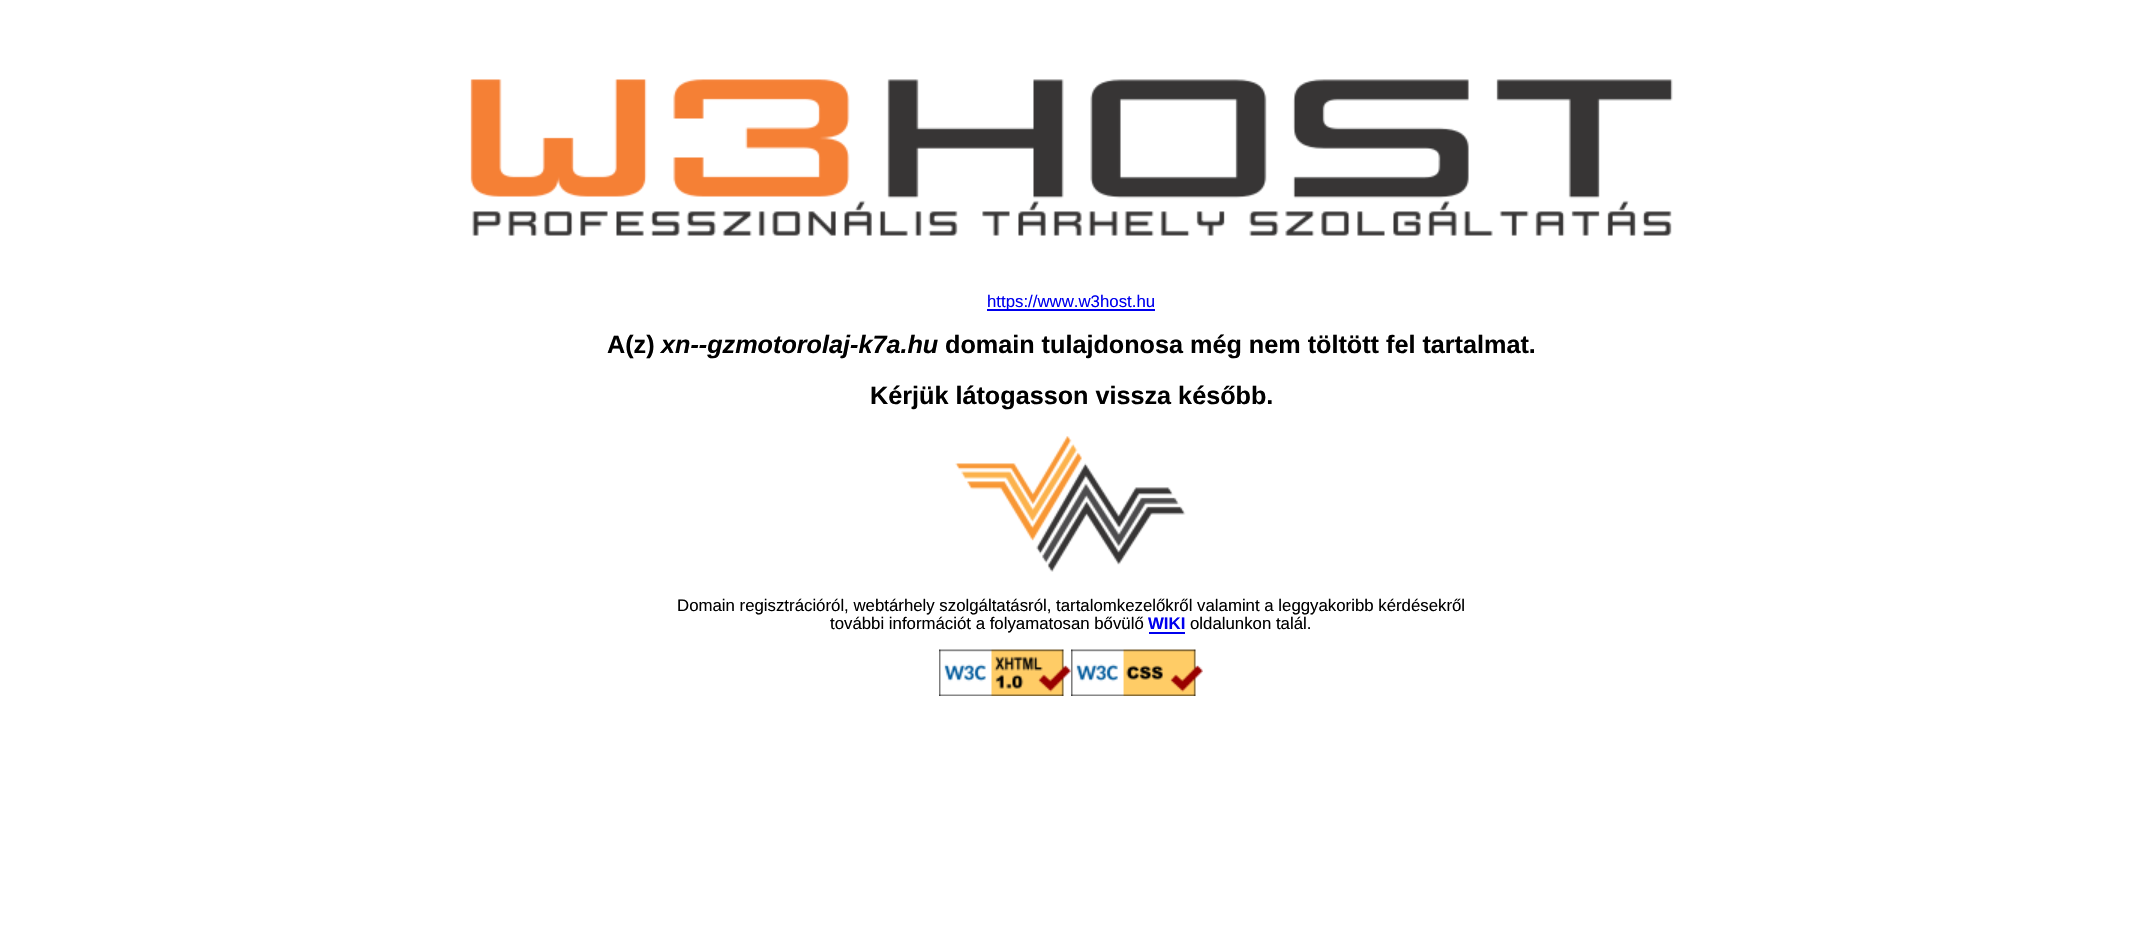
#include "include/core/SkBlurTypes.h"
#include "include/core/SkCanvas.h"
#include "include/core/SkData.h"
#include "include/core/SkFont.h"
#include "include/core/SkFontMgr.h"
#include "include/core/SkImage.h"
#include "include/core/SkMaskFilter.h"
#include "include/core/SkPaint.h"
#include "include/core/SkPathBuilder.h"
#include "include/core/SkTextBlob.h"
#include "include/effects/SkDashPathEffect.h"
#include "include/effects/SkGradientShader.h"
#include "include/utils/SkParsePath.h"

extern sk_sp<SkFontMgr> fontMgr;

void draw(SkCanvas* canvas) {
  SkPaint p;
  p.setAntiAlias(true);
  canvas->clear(SK_ColorWHITE);
  canvas->drawImageRect(SkImages::DeferredFromEncodedData(SkData::MakeFromFileName("images/1.png")), SkRect::MakeLTRB(470, 79, 1673, 236), SkSamplingOptions());
  p.setColor(SkColorSetRGB(0, 0, 238));
  canvas->drawRect(SkRect::MakeLTRB(987, 309, 1155, 311), p);
  canvas->drawImageRect(SkImages::DeferredFromEncodedData(SkData::MakeFromFileName("images/2.png")), SkRect::MakeLTRB(955, 436, 1186, 572), SkSamplingOptions());
  canvas->drawRect(SkRect::MakeLTRB(1149, 632, 1185, 634), p);
  canvas->drawImageRect(SkImages::DeferredFromEncodedData(SkData::MakeFromFileName("images/3.png")), SkRect::MakeLTRB(939, 649, 1071, 696), SkSamplingOptions());
  canvas->drawImageRect(SkImages::DeferredFromEncodedData(SkData::MakeFromFileName("images/4.png")), SkRect::MakeLTRB(1071, 649, 1203, 696), SkSamplingOptions());
  SkFont font1(fontMgr->matchFamilyStyle("Liberation Sans", SkFontStyle::Normal()), 16.8f);
  font1.setSubpixel(true);
  canvas->drawString("https://www.w3host.hu", 987, 307, font1, p);
  SkFont font2(fontMgr->matchFamilyStyle("Liberation Sans", SkFontStyle::Bold()), 25.2f);
  font2.setSubpixel(true);
  p.setColor(SK_ColorBLACK);
  canvas->drawString("A(z)", 607, 353, font2, p);
  SkFont font3(fontMgr->matchFamilyStyle("Liberation Sans", SkFontStyle::BoldItalic()), 25.2f);
  font3.setSubpixel(true);
  canvas->drawString("xn--gzmotorolaj-k7a.hu", 661, 353, font3, p);
  canvas->drawString("domain tulajdonosa még nem töltött fel tartalmat.", 945, 353, font2, p);
  canvas->drawString("Kérjük látogasson vissza később.", 870, 404, font2, p);
  canvas->drawString("Domain regisztrációról, webtárhely szolgáltatásról, tartalomkezelőkről valamint a leggyakoribb kérdésekről", 677, 611, font1, p);
  canvas->drawString("további információt a folyamatosan bővülő", 830, 629, font1, p);
  SkFont font4(fontMgr->matchFamilyStyle("Liberation Sans", SkFontStyle::Bold()), 16.8f);
  font4.setSubpixel(true);
  p.setColor(SkColorSetRGB(0, 0, 238));
  canvas->drawString("WIKI", 1148, 629, font4, p);
  p.setColor(SK_ColorBLACK);
  canvas->drawString("oldalunkon talál.", 1190, 629, font1, p);
}
